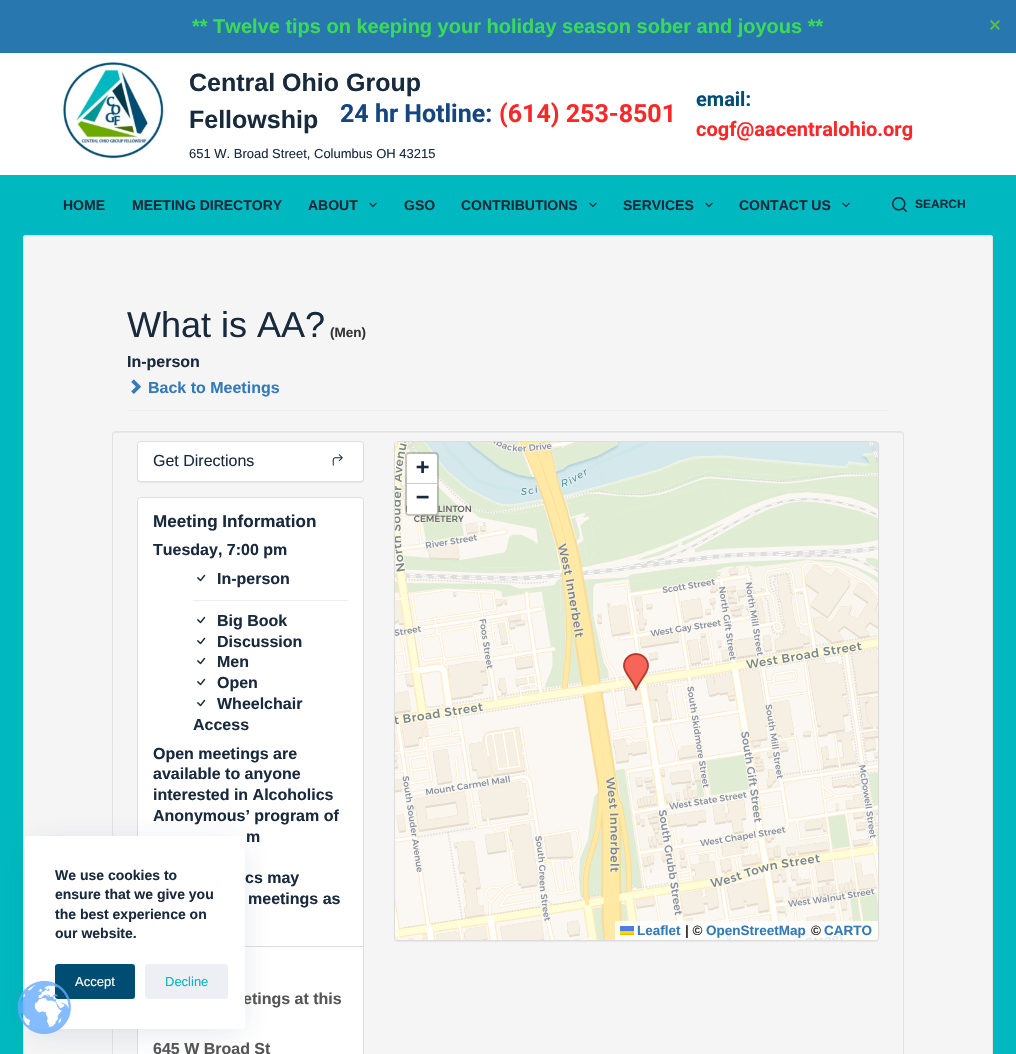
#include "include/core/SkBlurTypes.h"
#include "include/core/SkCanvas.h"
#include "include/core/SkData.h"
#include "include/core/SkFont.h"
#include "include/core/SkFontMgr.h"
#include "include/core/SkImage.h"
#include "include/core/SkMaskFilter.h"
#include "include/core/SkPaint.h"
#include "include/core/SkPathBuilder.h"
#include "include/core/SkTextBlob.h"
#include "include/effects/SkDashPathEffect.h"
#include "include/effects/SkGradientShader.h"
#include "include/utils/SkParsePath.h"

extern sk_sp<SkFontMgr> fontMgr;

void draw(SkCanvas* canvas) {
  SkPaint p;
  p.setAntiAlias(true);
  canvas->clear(SkColorSetRGB(0, 184, 192));
  p.setColor(SkColorSetRGB(40, 119, 174));
  canvas->drawRect(SkRect::MakeLTRB(0, 0, 1016, 53), p);
  p.setColor(SK_ColorWHITE);
  canvas->drawRect(SkRect::MakeLTRB(0, 53, 1016, 175), p);
  canvas->drawImageRect(SkImages::DeferredFromEncodedData(SkData::MakeFromFileName("images/1.png")), SkRect::MakeLTRB(60, 61, 166, 160), SkSamplingOptions());
  canvas->drawImageRect(SkImages::DeferredFromEncodedData(SkData::MakeFromFileName("images/2.png")), SkRect::MakeLTRB(369, 202, 377, 208), SkSamplingOptions());
  canvas->drawImageRect(SkImages::DeferredFromEncodedData(SkData::MakeFromFileName("images/2.png")), SkRect::MakeLTRB(589, 202, 597, 208), SkSamplingOptions());
  canvas->drawImageRect(SkImages::DeferredFromEncodedData(SkData::MakeFromFileName("images/2.png")), SkRect::MakeLTRB(705, 202, 713, 208), SkSamplingOptions());
  canvas->drawImageRect(SkImages::DeferredFromEncodedData(SkData::MakeFromFileName("images/2.png")), SkRect::MakeLTRB(842, 202, 850, 208), SkSamplingOptions());
  canvas->drawImageRect(SkImages::DeferredFromEncodedData(SkData::MakeFromFileName("images/3.png")), SkRect::MakeLTRB(892, 197, 907, 212), SkSamplingOptions());
  p.setColor(SkColorSetRGB(245, 245, 245));
  canvas->drawRoundRect(SkRect::MakeLTRB(23, 235, 993, 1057), 3, 3, p);
  p.setColor(SkColorSetRGB(233, 233, 233));
  canvas->drawPath(SkPathBuilder().moveTo(26, 237).lineTo(990, 237).cubicTo(991, 237, 992, 238, 992, 239).lineTo(992, 238).lineTo(991, 236).lineTo(508, 236).lineTo(26, 236).lineTo(24, 237).lineTo(24, 239).cubicTo(24, 238, 25, 237, 26, 237).close().detach(), p);
  p.setStyle(SkPaint::kStroke_Style);
  p.setStrokeWidth(1);
  p.setColor(SkColorSetRGB(227, 227, 227));
  canvas->drawRoundRect(SkRect::MakeLTRB(23.5f, 235.5f, 992.5f, 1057.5f), 2.5f, 2.5f, p);
  p.setStyle(SkPaint::kFill_Style);
  p.setColor(SkColorSetRGB(238, 238, 238));
  canvas->drawRect(SkRect::MakeLTRB(127, 410, 889, 411), p);
  canvas->drawImageRect(SkImages::DeferredFromEncodedData(SkData::MakeFromFileName("images/4.png")), SkRect::MakeLTRB(131, 379, 142, 394), SkSamplingOptions());
  p.setColor(SkColorSetRGB(233, 233, 233));
  canvas->drawPath(SkPathBuilder().moveTo(115, 433).lineTo(901, 433).cubicTo(902, 433, 903, 434, 903, 435).cubicTo(903, 434, 903, 432, 901, 432).lineTo(115, 432).cubicTo(113, 432, 113, 434, 113, 435).cubicTo(113, 434, 114, 433, 115, 433).close().detach(), p);
  p.setStyle(SkPaint::kStroke_Style);
  p.setColor(SkColorSetRGB(227, 227, 227));
  canvas->drawRoundRect(SkRect::MakeLTRB(112.5f, 431.5f, 903.5f, 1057.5f), 2.5f, 2.5f, p);
  p.setStyle(SkPaint::kFill_Style);
  p.setColor(SkColorSetARGB(13, 0, 0, 0));
  p.setMaskFilter(SkMaskFilter::MakeBlur(kNormal_SkBlurStyle, 0.5f));
  canvas->drawRoundRect(SkRect::MakeLTRB(137, 442, 364, 483), 4, 4, p);
  p.setMaskFilter(nullptr);
  p.setStyle(SkPaint::kStroke_Style);
  p.setColor(SkColorSetRGB(221, 221, 221));
  canvas->drawRoundRect(SkRect::MakeLTRB(137.5f, 441.5f, 363.5f, 481.5f), 3.5f, 3.5f, p);
  p.setStyle(SkPaint::kFill_Style);
  p.setColor(SK_ColorWHITE);
  canvas->drawRoundRect(SkRect::MakeLTRB(138, 442, 363, 481), 3, 3, p);
  canvas->drawImageRect(SkImages::DeferredFromEncodedData(SkData::MakeFromFileName("images/5.png")), SkRect::MakeLTRB(332, 454, 343, 466), SkSamplingOptions());
  canvas->drawRoundRect(SkRect::MakeLTRB(137.5f, 497.5f, 363.5f, 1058.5f), 3.5f, 3.5f, p);
  p.setStyle(SkPaint::kStroke_Style);
  p.setColor(SkColorSetRGB(221, 221, 221));
  canvas->drawRoundRect(SkRect::MakeLTRB(137.5f, 497.5f, 363.5f, 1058.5f), 3.5f, 3.5f, p);
  p.setStyle(SkPaint::kFill_Style);
  p.setColor(SK_ColorWHITE);
  canvas->drawPath(SkPathBuilder().moveTo(141, 498).lineTo(360, 498).cubicTo(361.5f, 498, 363, 499.5f, 363, 501).lineTo(363, 947).lineTo(138, 947).lineTo(138, 501).cubicTo(138, 499.5f, 139.5f, 498, 141, 498).close().detach(), p);
  p.setColor(SkColorSetRGB(221, 221, 221));
  canvas->drawRect(SkRect::MakeLTRB(245, 946, 363, 947), p);
  canvas->drawImageRect(SkImages::DeferredFromEncodedData(SkData::MakeFromFileName("images/6.png")), SkRect::MakeLTRB(197, 574, 206, 582), SkSamplingOptions());
  p.setColor(SkColorSetRGB(238, 238, 238));
  canvas->drawRect(SkRect::MakeLTRB(193, 600, 348, 601), p);
  canvas->drawImageRect(SkImages::DeferredFromEncodedData(SkData::MakeFromFileName("images/6.png")), SkRect::MakeLTRB(197, 616, 206, 624), SkSamplingOptions());
  canvas->drawImageRect(SkImages::DeferredFromEncodedData(SkData::MakeFromFileName("images/6.png")), SkRect::MakeLTRB(197, 637, 206, 645), SkSamplingOptions());
  canvas->drawImageRect(SkImages::DeferredFromEncodedData(SkData::MakeFromFileName("images/6.png")), SkRect::MakeLTRB(197, 657, 206, 665), SkSamplingOptions());
  canvas->drawImageRect(SkImages::DeferredFromEncodedData(SkData::MakeFromFileName("images/6.png")), SkRect::MakeLTRB(197, 678, 206, 686), SkSamplingOptions());
  canvas->drawImageRect(SkImages::DeferredFromEncodedData(SkData::MakeFromFileName("images/6.png")), SkRect::MakeLTRB(197, 699, 206, 707), SkSamplingOptions());
  p.setColor(SkColorSetARGB(13, 0, 0, 0));
  p.setMaskFilter(SkMaskFilter::MakeBlur(kNormal_SkBlurStyle, 0.5f));
  canvas->drawRoundRect(SkRect::MakeLTRB(394, 442, 879, 942), 4, 4, p);
  p.setMaskFilter(nullptr);
  p.setStyle(SkPaint::kStroke_Style);
  p.setColor(SkColorSetRGB(221, 221, 221));
  canvas->drawRoundRect(SkRect::MakeLTRB(394.5f, 441.5f, 878.5f, 940.5f), 3.5f, 3.5f, p);
  canvas->drawImageRect(SkImages::DeferredFromEncodedData(SkData::MakeFromFileName("images/7.png")), SkRect::MakeLTRB(395, 442, 620, 671), SkSamplingOptions());
  canvas->drawImageRect(SkImages::DeferredFromEncodedData(SkData::MakeFromFileName("images/8.png")), SkRect::MakeLTRB(620, 442, 876, 671), SkSamplingOptions());
  canvas->drawImageRect(SkImages::DeferredFromEncodedData(SkData::MakeFromFileName("images/9.png")), SkRect::MakeLTRB(876, 442, 878, 671), SkSamplingOptions());
  canvas->drawImageRect(SkImages::DeferredFromEncodedData(SkData::MakeFromFileName("images/10.png")), SkRect::MakeLTRB(395, 671, 620, 927), SkSamplingOptions());
  canvas->drawImageRect(SkImages::DeferredFromEncodedData(SkData::MakeFromFileName("images/11.png")), SkRect::MakeLTRB(620, 671, 876, 927), SkSamplingOptions());
  canvas->drawImageRect(SkImages::DeferredFromEncodedData(SkData::MakeFromFileName("images/12.png")), SkRect::MakeLTRB(876, 671, 878, 927), SkSamplingOptions());
  canvas->drawImageRect(SkImages::DeferredFromEncodedData(SkData::MakeFromFileName("images/13.png")), SkRect::MakeLTRB(395, 927, 620, 940), SkSamplingOptions());
  canvas->drawImageRect(SkImages::DeferredFromEncodedData(SkData::MakeFromFileName("images/14.png")), SkRect::MakeLTRB(620, 927, 876, 940), SkSamplingOptions());
  canvas->drawImageRect(SkImages::DeferredFromEncodedData(SkData::MakeFromFileName("images/15.png")), SkRect::MakeLTRB(876, 927, 878, 940), SkSamplingOptions());
  canvas->drawImageRect(SkImages::DeferredFromEncodedData(SkData::MakeFromFileName("images/16.png")), SkRect::MakeLTRB(623, 653, 649, 691), SkSamplingOptions());
  p.setStrokeWidth(2);
  p.setColor(SkColorSetARGB(51, 0, 0, 0));
  canvas->drawRoundRect(SkRect::MakeLTRB(406, 453, 438, 515), 3, 3, p);
  p.setStyle(SkPaint::kFill_Style);
  p.setColor(SK_ColorWHITE);
  canvas->drawPath(SkPathBuilder().moveTo(409, 454).lineTo(435, 454).cubicTo(436, 454, 437, 455, 437, 456).lineTo(437, 484).lineTo(407, 484).lineTo(407, 456).cubicTo(407, 455, 408, 454, 409, 454).close().detach(), p);
  p.setColor(SkColorSetRGB(204, 204, 204));
  canvas->drawRect(SkRect::MakeLTRB(407, 483, 437, 484), p);
  p.setColor(SK_ColorWHITE);
  canvas->drawPath(SkPathBuilder().moveTo(407, 484).lineTo(437, 484).lineTo(437, 512).cubicTo(437, 513, 436, 514, 435, 514).lineTo(409, 514).cubicTo(408, 514, 407, 513, 407, 512).close().detach(), p);
  p.setColor(SkColorSetARGB(204, 255, 255, 255));
  canvas->drawPath(SkPathBuilder().moveTo(615, 921).lineTo(878, 921).lineTo(878, 937).cubicTo(878, 938.5f, 876.5f, 940, 875, 940).lineTo(615, 940).close().detach(), p);
  p.setColor(SkColorSetRGB(76, 123, 225));
  canvas->drawRect(SkRect::MakeLTRB(620, 926, 634, 931), p);
  p.setColor(SkColorSetRGB(255, 213, 0));
  canvas->drawRect(SkRect::MakeLTRB(620, 931, 634, 934), p);
  p.setColor(SkColorSetRGB(224, 188, 0));
  canvas->drawRect(SkRect::MakeLTRB(620, 934, 634, 935), p);
  p.setColor(SkColorSetARGB(38, 34, 56, 101));
  p.setMaskFilter(SkMaskFilter::MakeBlur(kNormal_SkBlurStyle, 15));
  canvas->drawRect(SkRect::MakeLTRB(30, 846, 240, 1029), p);
  p.setMaskFilter(nullptr);
  SkFont font1(fontMgr->matchFamilyStyle("Liberation Sans", SkFontStyle::Bold()), 20);
  font1.setSubpixel(true);
  p.setColor(SkColorSetRGB(57, 219, 89));
  canvas->drawString("** Twelve tips on keeping your holiday season sober and joyous **", 192, 33, font1, p);
  SkFont font2(fontMgr->matchFamilyStyle("DejaVu Sans", SkFontStyle::Bold()), 16);
  font2.setSubpixel(true);
  p.setColor(SkColorSetRGB(93, 185, 75));
  canvas->drawString("✕", 988, 31, font2, p);
  SkFont font3(fontMgr->matchFamilyStyle("Liberation Sans", SkFontStyle::Bold()), 25);
  font3.setSubpixel(true);
  p.setColor(SkColorSetRGB(25, 42, 61));
  canvas->drawString("Central Ohio Group", 189, 91, font3, p);
  canvas->drawString("Fellowship", 189, 128, font3, p);
  SkFont font4(fontMgr->matchFamilyStyle("Liberation Sans", SkFontStyle::Normal()), 13);
  font4.setSubpixel(true);
  canvas->drawString("651 W. Broad Street, Columbus OH 43215", 189, 158, font4, p);
  SkFont font5(fontMgr->matchFamilyStyle("Roboto", SkFontStyle::Bold()), 25);
  font5.setSubpixel(true);
  p.setColor(SkColorSetRGB(22, 69, 128));
  canvas->drawString("24 hr Hotline:", 340, 122, font5, p);
  p.setColor(SkColorSetRGB(250, 40, 40));
  canvas->drawString("(614) 253-8501", 499, 122, font5, p);
  SkFont font6(fontMgr->matchFamilyStyle("Roboto", SkFontStyle::Bold()), 20);
  font6.setSubpixel(true);
  p.setColor(SkColorSetRGB(0, 77, 115));
  canvas->drawString("email:", 696, 106, font6, p);
  p.setColor(SkColorSetRGB(250, 40, 40));
  canvas->drawString("cogf@aacentralohio.org", 696, 136, font6, p);
  SkFont font7(fontMgr->matchFamilyStyle("Liberation Sans", SkFontStyle::Bold()), 14);
  font7.setSubpixel(true);
  p.setColor(SkColorSetRGB(25, 42, 61));
  canvas->drawString("HOME", 63, 210, font7, p);
  canvas->drawString("MEETING DIRECTORY", 132, 210, font7, p);
  canvas->drawString("ABOUT", 308, 210, font7, p);
  canvas->drawString("GSO", 404, 210, font7, p);
  canvas->drawString("CONTRIBUTIONS", 461, 210, font7, p);
  canvas->drawString("SERVICES", 623, 210, font7, p);
  canvas->drawString("CONTACT US", 739, 210, font7, p);
  SkFont font8(fontMgr->matchFamilyStyle("Liberation Sans", SkFontStyle::Bold()), 12);
  font8.setSubpixel(true);
  canvas->drawString("SEARCH", 915, 208, font8, p);
  SkFont font9(fontMgr->matchFamilyStyle("Liberation Sans", SkFontStyle::Normal()), 36);
  font9.setSubpixel(true);
  canvas->drawString("What is AA?", 127, 337, font9, p);
  SkFont font10(fontMgr->matchFamilyStyle("Liberation Sans", SkFontStyle::Bold()), 13.5f);
  font10.setSubpixel(true);
  p.setColor(SkColorSetRGB(51, 51, 51));
  canvas->drawString("(Men)", 330, 337, font10, p);
  SkFont font11(fontMgr->matchFamilyStyle("Liberation Sans", SkFontStyle::Bold()), 16);
  font11.setSubpixel(true);
  p.setColor(SkColorSetRGB(25, 42, 61));
  canvas->drawString("In-person", 127, 367, font11, p);
  p.setColor(SkColorSetRGB(51, 122, 183));
  canvas->drawString("Back to Meetings", 148, 393, font11, p);
  SkFont font12(fontMgr->matchFamilyStyle("Liberation Sans", SkFontStyle::Normal()), 16);
  font12.setSubpixel(true);
  p.setColor(SkColorSetRGB(25, 42, 61));
  canvas->drawString("Get Directions", 153, 466, font12, p);
  SkFont font13(fontMgr->matchFamilyStyle("Liberation Sans", SkFontStyle::Bold()), 17.1f);
  font13.setSubpixel(true);
  canvas->drawString("Meeting Information", 153, 527, font13, p);
  canvas->drawString("Tuesday, 7:00 pm", 153, 555, font11, p);
  canvas->drawString("In-person", 217, 584, font11, p);
  canvas->drawString("Big Book", 217, 626, font11, p);
  canvas->drawString("Discussion", 217, 647, font11, p);
  canvas->drawString("Men", 217, 667, font11, p);
  canvas->drawString("Open", 217, 688, font11, p);
  canvas->drawString("Wheelchair", 217, 709, font11, p);
  canvas->drawString("Access", 193, 730, font11, p);
  canvas->drawString("Open meetings are", 153, 759, font11, p);
  canvas->drawString("available to anyone", 153, 779, font11, p);
  canvas->drawString("interested in Alcoholics", 153, 800, font11, p);
  canvas->drawString("Anonymous’ program of", 153, 821, font11, p);
  canvas->drawString("m", 246, 842, font11, p);
  canvas->drawString("cs may", 245, 883, font11, p);
  canvas->drawString("meetings as", 248, 904, font11, p);
  p.setColor(SkColorSetRGB(85, 85, 85));
  canvas->drawString("etings at this", 243, 1004, font11, p);
  canvas->drawString("645 W Broad St", 153, 1054, font11, p);
  SkFont font14(fontMgr->matchFamilyStyle("DejaVu Sans Mono", SkFontStyle::Bold()), 22);
  font14.setSubpixel(true);
  p.setColor(SkColorSetRGB(25, 42, 61));
  canvas->drawString("+", 416, 474, font14, p);
  canvas->drawString("−", 416, 504, font14, p);
  p.setColor(SkColorSetRGB(51, 122, 183));
  canvas->drawString("Leaflet", 637, 935, font10, p);
  p.setColor(SkColorSetRGB(51, 51, 51));
  canvas->drawString("| ©", 685, 935, font10, p);
  p.setColor(SkColorSetRGB(51, 122, 183));
  canvas->drawString("OpenStreetMap", 706, 935, font10, p);
  p.setColor(SkColorSetRGB(51, 51, 51));
  canvas->drawString("©", 811, 935, font10, p);
  p.setColor(SkColorSetRGB(51, 122, 183));
  canvas->drawString("CARTO", 824, 935, font10, p);
  p.setColor(SK_ColorWHITE);
  canvas->drawRoundRect(SkRect::MakeLTRB(25, 836, 245, 1029), 3, 3, p);
  p.setColor(SkColorSetRGB(25, 42, 61));
  canvas->drawString("We use cookies to", 55, 880, font7, p);
  canvas->drawString("ensure that we give you", 55, 899, font7, p);
  canvas->drawString("the best experience on", 55, 919, font7, p);
  canvas->drawString("our website.", 55, 938, font7, p);
  p.setColor(SkColorSetRGB(0, 77, 115));
  canvas->drawRoundRect(SkRect::MakeLTRB(55, 964, 135, 999), 3, 3, p);
  p.setColor(SK_ColorWHITE);
  canvas->drawString("Accept", 75, 986, font4, p);
  p.setColor(SkColorSetRGB(236, 239, 243));
  canvas->drawRoundRect(SkRect::MakeLTRB(145, 964, 228, 999), 3, 3, p);
  p.setColor(SkColorSetRGB(0, 184, 192));
  canvas->drawString("Decline", 165, 986, font4, p);
  canvas->drawImageRect(SkImages::DeferredFromEncodedData(SkData::MakeFromFileName("images/17.png")), SkRect::MakeLTRB(17, 980, 71, 1035), SkSamplingOptions());
}
